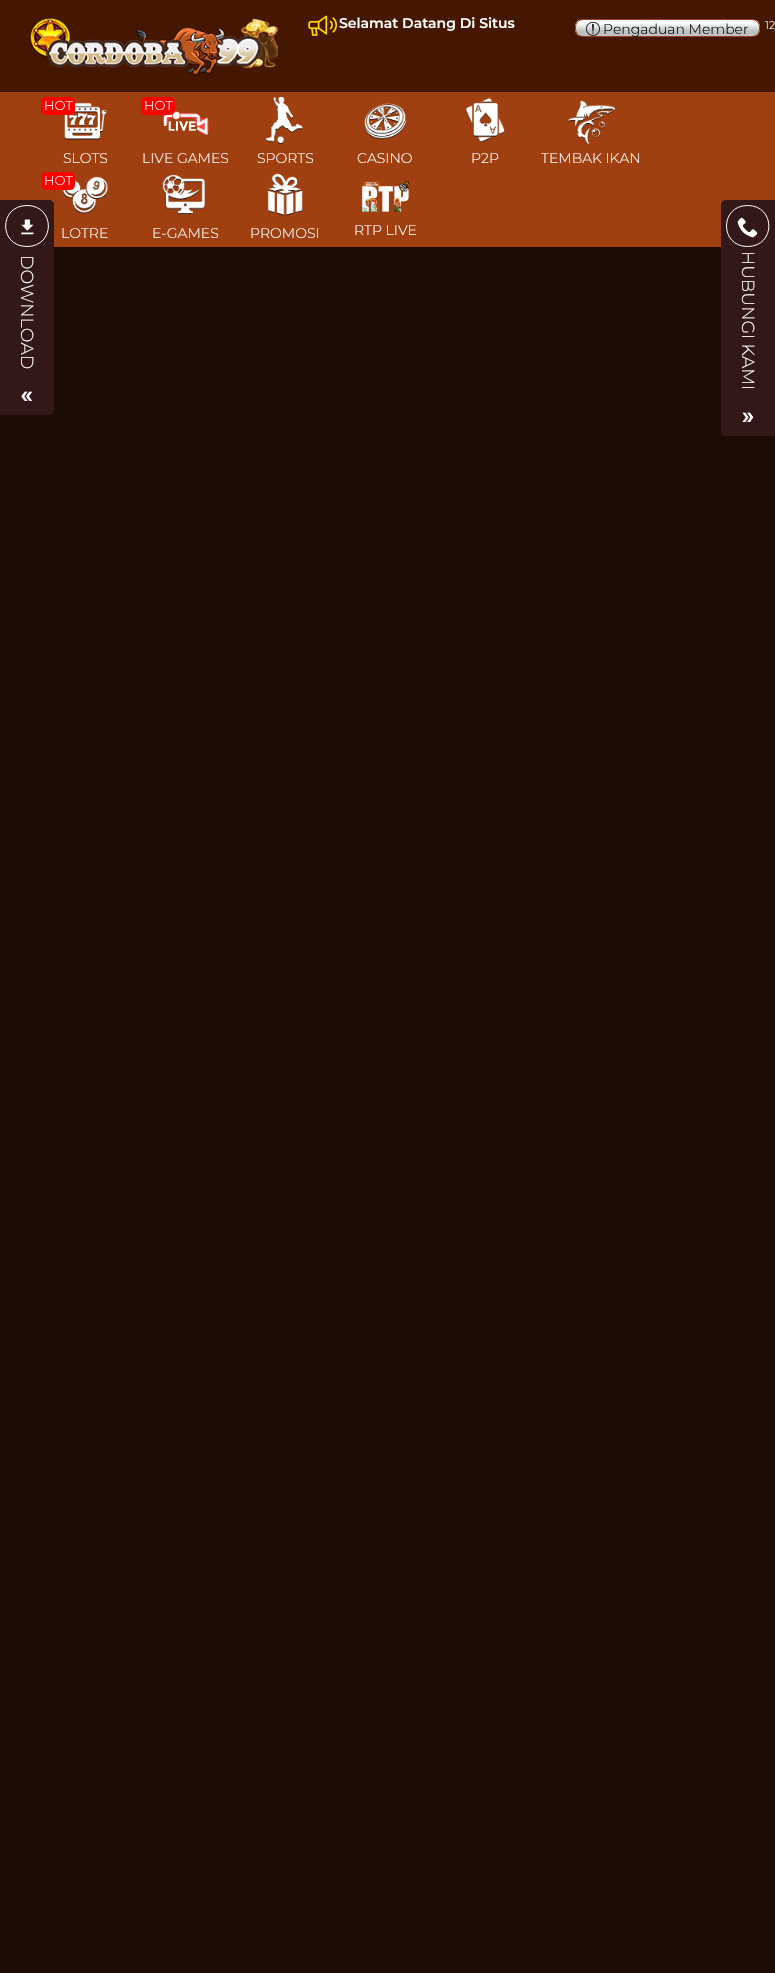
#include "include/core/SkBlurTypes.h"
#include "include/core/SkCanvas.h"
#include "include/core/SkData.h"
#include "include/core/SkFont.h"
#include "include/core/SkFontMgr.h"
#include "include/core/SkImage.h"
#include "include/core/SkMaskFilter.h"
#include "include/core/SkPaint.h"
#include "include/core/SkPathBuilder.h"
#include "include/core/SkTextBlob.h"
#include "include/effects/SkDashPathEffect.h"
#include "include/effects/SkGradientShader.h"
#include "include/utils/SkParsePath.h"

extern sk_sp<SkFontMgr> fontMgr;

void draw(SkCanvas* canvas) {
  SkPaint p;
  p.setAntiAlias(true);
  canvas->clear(SkColorSetRGB(28, 14, 7));
  p.setColor(SkColorSetRGB(69, 23, 0));
  canvas->drawRect(SkRect::MakeLTRB(0, 0, 775, 92), p);
  canvas->drawImageRect(SkImages::DeferredFromEncodedData(SkData::MakeFromFileName("images/1.png")), SkRect::MakeLTRB(29, 18, 278, 76), SkSamplingOptions());
  canvas->drawImageRect(SkImages::DeferredFromEncodedData(SkData::MakeFromFileName("images/2.png")), SkRect::MakeLTRB(308, 15, 338, 36), SkSamplingOptions());
  canvas->save();
  canvas->clipPath(SkPathBuilder().moveTo(583, 19).lineTo(752, 19).cubicTo(756.5f, 19, 760, 22.5f, 760, 27).lineTo(760, 29).cubicTo(760, 33.5f, 756.5f, 37, 752, 37).lineTo(583, 37).cubicTo(578.5f, 37, 575, 33.5f, 575, 29).lineTo(575, 27).cubicTo(575, 22.5f, 578.5f, 19, 583, 19).close().detach(), true);
  {
    const SkColor colors[] = {SK_ColorWHITE, SkColorSetRGB(191, 194, 196)};
    const float stops[] = {0.18f, 0.69f};
    const SkPoint ends[] = {{668, 20}, {668, 36}};
    p.setShader(SkGradientShader::MakeLinear(ends, colors, stops, 2, SkTileMode::kClamp));
    p.setAlpha(255);
  }
  canvas->drawRect(SkRect::MakeLTRB(575, 20, 760, 36), p);
  canvas->restore();
  p.setStyle(SkPaint::kStroke_Style);
  p.setStrokeWidth(1);
  p.setShader(nullptr);
  p.setColor(SkColorSetRGB(160, 64, 16));
  canvas->drawRoundRect(SkRect::MakeLTRB(575.5f, 19.5f, 759.5f, 36.5f), 7.5f, 7.5f, p);
  canvas->drawImageRect(SkImages::DeferredFromEncodedData(SkData::MakeFromFileName("images/3.png")), SkRect::MakeLTRB(586, 21, 600, 36), SkSamplingOptions());
  p.setStyle(SkPaint::kFill_Style);
  canvas->drawRect(SkRect::MakeLTRB(0, 92, 775, 247), p);
  canvas->drawImageRect(SkImages::DeferredFromEncodedData(SkData::MakeFromFileName("images/4.png")), SkRect::MakeLTRB(64, 102, 107, 140), SkSamplingOptions());
  p.setColor(SkColorSetRGB(255, 0, 0));
  canvas->drawRoundRect(SkRect::MakeLTRB(41, 97, 75, 115), 5, 5, p);
  canvas->drawImageRect(SkImages::DeferredFromEncodedData(SkData::MakeFromFileName("images/5.png")), SkRect::MakeLTRB(162, 111, 209, 135), SkSamplingOptions());
  canvas->drawRoundRect(SkRect::MakeLTRB(141, 97, 175, 115), 5, 5, p);
  canvas->drawImageRect(SkImages::DeferredFromEncodedData(SkData::MakeFromFileName("images/6.png")), SkRect::MakeLTRB(265, 97, 303, 145), SkSamplingOptions());
  canvas->drawImageRect(SkImages::DeferredFromEncodedData(SkData::MakeFromFileName("images/7.png")), SkRect::MakeLTRB(364, 103, 407, 140), SkSamplingOptions());
  canvas->drawImageRect(SkImages::DeferredFromEncodedData(SkData::MakeFromFileName("images/8.png")), SkRect::MakeLTRB(466, 98, 505, 143), SkSamplingOptions());
  canvas->drawImageRect(SkImages::DeferredFromEncodedData(SkData::MakeFromFileName("images/9.png")), SkRect::MakeLTRB(568, 100, 615, 146), SkSamplingOptions());
  canvas->drawImageRect(SkImages::DeferredFromEncodedData(SkData::MakeFromFileName("images/10.png")), SkRect::MakeLTRB(62, 176, 108, 214), SkSamplingOptions());
  canvas->drawRoundRect(SkRect::MakeLTRB(41, 172, 75, 190), 5, 5, p);
  canvas->drawImageRect(SkImages::DeferredFromEncodedData(SkData::MakeFromFileName("images/11.png")), SkRect::MakeLTRB(162, 175, 205, 215), SkSamplingOptions());
  canvas->drawImageRect(SkImages::DeferredFromEncodedData(SkData::MakeFromFileName("images/12.png")), SkRect::MakeLTRB(267, 173, 303, 216), SkSamplingOptions());
  canvas->drawImageRect(SkImages::DeferredFromEncodedData(SkData::MakeFromFileName("images/13.png")), SkRect::MakeLTRB(362, 180, 410, 212), SkSamplingOptions());
  p.setColor(SkColorSetRGB(51, 24, 24));
  canvas->drawPath(SkPathBuilder().moveTo(0, 200).lineTo(49, 200).cubicTo(52, 200, 54, 202, 54, 205).lineTo(54, 410).cubicTo(54, 413, 52, 415, 49, 415).lineTo(0, 415).close().detach(), p);
  p.setStyle(SkPaint::kStroke_Style);
  p.setColor(SK_ColorWHITE);
  canvas->drawPath(SkPathBuilder().moveTo(27, 205.5f).cubicTo(55.5f, 205.5f, 55.5f, 246.5f, 27, 246.5f).cubicTo(-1.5f, 246.5f, -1.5f, 205.5f, 27, 205.5f).close().detach(), p);
  canvas->drawImageRect(SkImages::DeferredFromEncodedData(SkData::MakeFromFileName("images/14.png")), SkRect::MakeLTRB(21, 219, 34, 235), SkSamplingOptions());
  canvas->drawImageRect(SkImages::DeferredFromEncodedData(SkData::MakeFromFileName("images/15.png")), SkRect::MakeLTRB(21, 391, 33, 401), SkSamplingOptions());
  p.setStyle(SkPaint::kFill_Style);
  p.setColor(SkColorSetRGB(51, 24, 24));
  canvas->drawPath(SkPathBuilder().moveTo(726, 200).lineTo(775, 200).lineTo(775, 436).lineTo(726, 436).cubicTo(723, 436, 721, 434, 721, 431).lineTo(721, 205).cubicTo(721, 202, 723, 200, 726, 200).close().detach(), p);
  p.setStyle(SkPaint::kStroke_Style);
  p.setColor(SK_ColorWHITE);
  canvas->drawPath(SkPathBuilder().moveTo(747.5f, 205.5f).cubicTo(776, 205.5f, 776, 246.5f, 747.5f, 246.5f).cubicTo(719.5f, 246.5f, 719.5f, 205.5f, 747.5f, 205.5f).close().detach(), p);
  canvas->drawImageRect(SkImages::DeferredFromEncodedData(SkData::MakeFromFileName("images/16.png")), SkRect::MakeLTRB(737, 217, 758, 238), SkSamplingOptions());
  canvas->drawImageRect(SkImages::DeferredFromEncodedData(SkData::MakeFromFileName("images/17.png")), SkRect::MakeLTRB(742, 412, 754, 422), SkSamplingOptions());
  SkFont font1(fontMgr->matchFamilyStyle("Montserrat", SkFontStyle(600, SkFontStyle::kNormal_Width, SkFontStyle::kUpright_Slant)), 14);
  font1.setSubpixel(true);
  p.setStyle(SkPaint::kFill_Style);
  canvas->drawString("Selamat Datang Di Situs", 339, 28, font1, p);
  SkFont font2(fontMgr->matchFamilyStyle("Montserrat", SkFontStyle(300, SkFontStyle::kNormal_Width, SkFontStyle::kUpright_Slant)), 14);
  font2.setSubpixel(true);
  p.setColor(SK_ColorBLACK);
  canvas->drawString("Pengaduan Member", 603, 34, font2, p);
  SkFont font3(fontMgr->matchFamilyStyle("Montserrat", SkFontStyle(300, SkFontStyle::kNormal_Width, SkFontStyle::kUpright_Slant)), 11);
  font3.setSubpixel(true);
  p.setColor(SK_ColorWHITE);
  canvas->drawString("12", 765, 29, font3, p);
  SkFont font4(fontMgr->matchFamilyStyle("Montserrat", SkFontStyle(300, SkFontStyle::kNormal_Width, SkFontStyle::kUpright_Slant)), 13);
  font4.setSubpixel(true);
  canvas->drawString("HOT", 44, 110, font4, p);
  canvas->drawString("SLOTS", 63, 163, font2, p);
  canvas->drawString("HOT", 144, 110, font4, p);
  canvas->drawString("LIVE GAMES", 142, 163, font2, p);
  canvas->drawString("SPORTS", 257, 163, font2, p);
  canvas->drawString("CASINO", 357, 163, font2, p);
  canvas->drawString("P2P", 471, 163, font2, p);
  canvas->drawString("TEMBAK IKAN", 541, 163, font2, p);
  canvas->drawString("HOT", 44, 185, font4, p);
  canvas->drawString("LOTRE", 61, 238, font2, p);
  canvas->drawString("E-GAMES", 152, 238, font2, p);
  canvas->drawString("PROMOSI", 250, 238, font2, p);
  canvas->drawString("RTP LIVE", 354, 235, font2, p);
  SkFont font5(fontMgr->matchFamilyStyle("Montserrat", SkFontStyle(300, SkFontStyle::kNormal_Width, SkFontStyle::kUpright_Slant)), 17.5f);
  font5.setSubpixel(true);
  canvas->save();
  canvas->rotate(90, 21, 255);
  canvas->drawString("DOWNLOAD", 21, 255, font5, p);
  canvas->restore();
  canvas->save();
  canvas->rotate(90, 742, 251);
  canvas->drawString("HUBUNGI KAMI", 742, 251, font5, p);
  canvas->restore();
}
